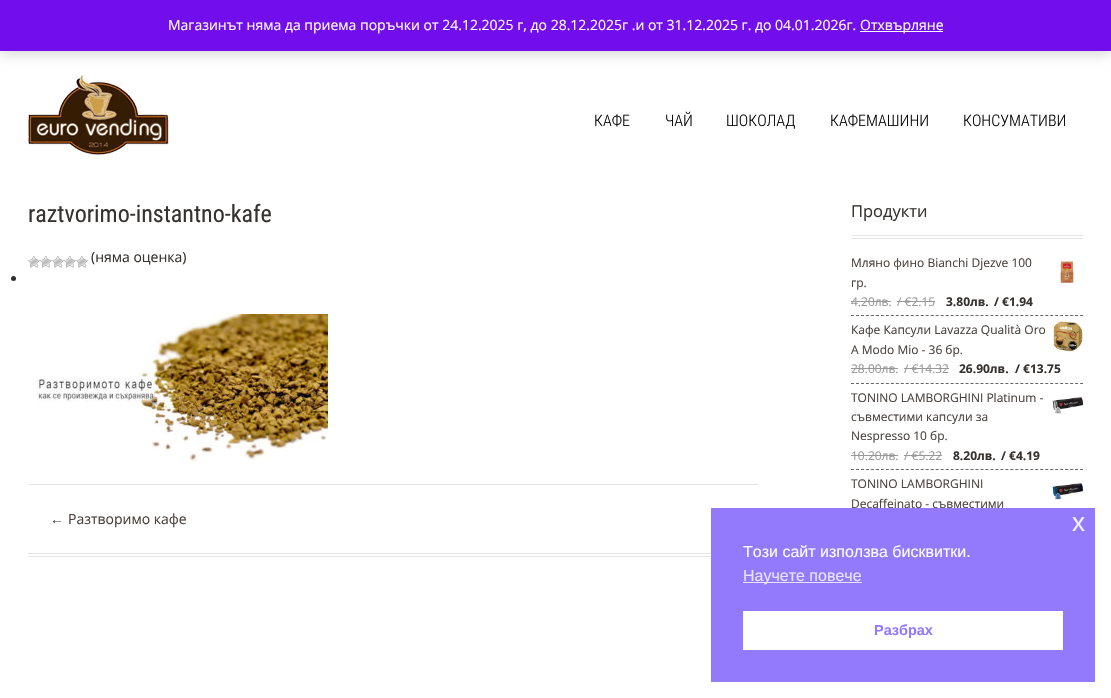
#include "include/core/SkBlurTypes.h"
#include "include/core/SkCanvas.h"
#include "include/core/SkData.h"
#include "include/core/SkFont.h"
#include "include/core/SkFontMgr.h"
#include "include/core/SkImage.h"
#include "include/core/SkMaskFilter.h"
#include "include/core/SkPaint.h"
#include "include/core/SkPathBuilder.h"
#include "include/core/SkTextBlob.h"
#include "include/effects/SkDashPathEffect.h"
#include "include/effects/SkGradientShader.h"
#include "include/utils/SkParsePath.h"

extern sk_sp<SkFontMgr> fontMgr;

void draw(SkCanvas* canvas) {
  SkPaint p;
  p.setAntiAlias(true);
  canvas->clear(SK_ColorWHITE);
  p.setColor(SkColorSetARGB(51, 0, 0, 0));
  p.setMaskFilter(SkMaskFilter::MakeBlur(kNormal_SkBlurStyle, 7));
  canvas->drawRect(SkRect::MakeLTRB(0, 1, 1111, 52), p);
  p.setMaskFilter(nullptr);
  p.setColor(SkColorSetRGB(114, 14, 236));
  canvas->drawRect(SkRect::MakeLTRB(0, 0, 1111, 51), p);
  p.setColor(SkColorSetRGB(252, 251, 254));
  canvas->drawRect(SkRect::MakeLTRB(860, 31, 943, 32), p);
  canvas->drawImageRect(SkImages::DeferredFromEncodedData(SkData::MakeFromFileName("images/1.png")), SkRect::MakeLTRB(28, 75, 169, 155), SkSamplingOptions());
  canvas->drawImageRect(SkImages::DeferredFromEncodedData(SkData::MakeFromFileName("images/2.png")), SkRect::MakeLTRB(28, 256, 40, 268), SkSamplingOptions());
  canvas->drawImageRect(SkImages::DeferredFromEncodedData(SkData::MakeFromFileName("images/2.png")), SkRect::MakeLTRB(40, 256, 52, 268), SkSamplingOptions());
  canvas->drawImageRect(SkImages::DeferredFromEncodedData(SkData::MakeFromFileName("images/2.png")), SkRect::MakeLTRB(52, 256, 64, 268), SkSamplingOptions());
  canvas->drawImageRect(SkImages::DeferredFromEncodedData(SkData::MakeFromFileName("images/2.png")), SkRect::MakeLTRB(64, 256, 76, 268), SkSamplingOptions());
  canvas->drawImageRect(SkImages::DeferredFromEncodedData(SkData::MakeFromFileName("images/2.png")), SkRect::MakeLTRB(76, 256, 88, 268), SkSamplingOptions());
  p.setColor(SkColorSetRGB(51, 49, 48));
  canvas->drawCircle(13.5f, 278.5f, 2.5f, p);
  canvas->drawImageRect(SkImages::DeferredFromEncodedData(SkData::MakeFromFileName("images/3.png")), SkRect::MakeLTRB(36, 314, 328, 462), SkSamplingOptions());
  p.setColor(SkColorSetRGB(232, 228, 227));
  canvas->drawRect(SkRect::MakeLTRB(28, 484, 758, 485), p);
  canvas->drawRect(SkRect::MakeLTRB(28, 553, 711, 554), p);
  canvas->drawRect(SkRect::MakeLTRB(28, 556, 711, 557), p);
  canvas->drawRect(SkRect::MakeLTRB(851, 235, 1083, 236), p);
  canvas->drawRect(SkRect::MakeLTRB(851, 238, 1083, 239), p);
  p.setStyle(SkPaint::kStroke_Style);
  p.setStrokeWidth(1);
  p.setColor(SkColorSetRGB(103, 103, 103));
  p.setPathEffect(SkDashPathEffect::Make({{3, 1.98f}}, 0));
  canvas->drawPath(SkPathBuilder().moveTo(851, 315.5f).lineTo(1083, 315.5f).detach(), p);
  p.setPathEffect(nullptr);
  canvas->drawImageRect(SkImages::DeferredFromEncodedData(SkData::MakeFromFileName("images/4.png")), SkRect::MakeLTRB(1060, 261, 1074, 283), SkSamplingOptions());
  p.setStyle(SkPaint::kFill_Style);
  p.setColor(SkColorSetRGB(153, 152, 152));
  canvas->drawRect(SkRect::MakeLTRB(851, 301, 891, 302), p);
  canvas->drawRect(SkRect::MakeLTRB(897, 301, 935, 302), p);
  p.setStyle(SkPaint::kStroke_Style);
  p.setColor(SkColorSetRGB(103, 103, 103));
  p.setPathEffect(SkDashPathEffect::Make({{3, 1.98f}}, 0));
  canvas->drawPath(SkPathBuilder().moveTo(851, 383.5f).lineTo(1083, 383.5f).detach(), p);
  p.setPathEffect(nullptr);
  canvas->drawImageRect(SkImages::DeferredFromEncodedData(SkData::MakeFromFileName("images/5.png")), SkRect::MakeLTRB(1053, 320, 1083, 352), SkSamplingOptions());
  p.setStyle(SkPaint::kFill_Style);
  p.setColor(SkColorSetRGB(153, 152, 152));
  canvas->drawRect(SkRect::MakeLTRB(851, 368, 898, 369), p);
  canvas->drawRect(SkRect::MakeLTRB(904, 368, 949, 369), p);
  p.setStyle(SkPaint::kStroke_Style);
  p.setColor(SkColorSetRGB(103, 103, 103));
  p.setPathEffect(SkDashPathEffect::Make({{3, 1.98f}}, 0));
  canvas->drawPath(SkPathBuilder().moveTo(851, 469.5f).lineTo(1083, 469.5f).detach(), p);
  p.setPathEffect(nullptr);
  canvas->drawImageRect(SkImages::DeferredFromEncodedData(SkData::MakeFromFileName("images/6.png")), SkRect::MakeLTRB(1052, 397, 1083, 414), SkSamplingOptions());
  p.setStyle(SkPaint::kFill_Style);
  p.setColor(SkColorSetRGB(153, 152, 152));
  canvas->drawRect(SkRect::MakeLTRB(851, 455, 898, 456), p);
  canvas->drawRect(SkRect::MakeLTRB(904, 455, 942, 456), p);
  canvas->drawImageRect(SkImages::DeferredFromEncodedData(SkData::MakeFromFileName("images/7.png")), SkRect::MakeLTRB(1052, 483, 1083, 500), SkSamplingOptions());
  SkFont font1(fontMgr->matchFamilyStyle("Open Sans", SkFontStyle::Normal()), 14);
  font1.setSubpixel(true);
  p.setColor(SkColorSetRGB(252, 251, 254));
  canvas->drawString("Магазинът няма да приема поръчки от 24.12.2025 г, до 28.12.2025г .и от 31.12.2025 г. до 04.01.2026г.", 168, 30, font1, p);
  canvas->drawString("Отхвърляне", 860, 30, font1, p);
  SkFont font2(fontMgr->matchFamilyStyle("Roboto Condensed", SkFontStyle(300, SkFontStyle::kNormal_Width, SkFontStyle::kUpright_Slant)), 16);
  font2.setSubpixel(true);
  p.setColor(SK_ColorBLACK);
  canvas->drawString("КАФЕ", 594, 126, font2, p);
  canvas->drawString("ЧАЙ", 665, 126, font2, p);
  canvas->drawString("ШОКОЛАД", 726, 126, font2, p);
  canvas->drawString("КАФЕМАШИНИ", 830, 126, font2, p);
  canvas->drawString("КОНСУМАТИВИ", 963, 126, font2, p);
  SkFont font3(fontMgr->matchFamilyStyle("Roboto Condensed", SkFontStyle::Normal()), 24);
  font3.setSubpixel(true);
  p.setColor(SkColorSetRGB(54, 50, 48));
  canvas->drawString("raztvorimo-instantno-kafe", 28, 222, font3, p);
  canvas->drawString("(няма оценка)", 91, 262, font1, p);
  SkFont font4(fontMgr->matchFamilyStyle("Liberation Sans", SkFontStyle::Normal()), 14);
  font4.setSubpixel(true);
  p.setColor(SkColorSetRGB(74, 65, 62));
  canvas->drawString("←", 50, 524, font4, p);
  canvas->drawString("Разтворимо кафе", 68, 524, font1, p);
  SkFont font5(fontMgr->matchFamilyStyle("Open Sans", SkFontStyle::Normal()), 16.5f);
  font5.setSubpixel(true);
  p.setColor(SkColorSetRGB(54, 50, 48));
  canvas->drawString("Продукти", 851, 217, font5, p);
  SkFont font6(fontMgr->matchFamilyStyle("Open Sans", SkFontStyle::Normal()), 12);
  font6.setSubpixel(true);
  p.setColor(SkColorSetRGB(74, 65, 62));
  canvas->drawString("Мляно фино Bianchi Djezve 100", 851, 267, font6, p);
  canvas->drawString("гр.", 851, 287, font6, p);
  p.setColor(SkColorSetRGB(153, 152, 152));
  canvas->drawString("4.20лв.", 851, 306, font6, p);
  canvas->drawString("/ €2.15", 897, 306, font6, p);
  SkFont font7(fontMgr->matchFamilyStyle("Open Sans", SkFontStyle::Bold()), 12);
  font7.setSubpixel(true);
  p.setColor(SkColorSetRGB(54, 50, 48));
  canvas->drawString("3.80лв.", 946, 306, font7, p);
  canvas->drawString("/ €1.94", 994, 306, font7, p);
  p.setColor(SkColorSetRGB(74, 65, 62));
  canvas->drawString("Кафе Капсули Lavazza Qualità Oro", 851, 334, font6, p);
  canvas->drawString("A Modo Mio - 36 бр.", 851, 354, font6, p);
  p.setColor(SkColorSetRGB(153, 152, 152));
  canvas->drawString("28.00лв.", 851, 373, font6, p);
  canvas->drawString("/ €14.32", 904, 373, font6, p);
  p.setColor(SkColorSetRGB(54, 50, 48));
  canvas->drawString("26.90лв.", 959, 373, font7, p);
  canvas->drawString("/ €13.75", 1015, 373, font7, p);
  p.setColor(SkColorSetRGB(74, 65, 62));
  canvas->drawString("TONINO LAMBORGHINI Platinum -", 851, 402, font6, p);
  canvas->drawString("съвместими капсули за", 851, 421, font6, p);
  canvas->drawString("Nespresso 10 бр.", 851, 440, font6, p);
  p.setColor(SkColorSetRGB(153, 152, 152));
  canvas->drawString("10.20лв.", 851, 460, font6, p);
  canvas->drawString("/ €5.22", 904, 460, font6, p);
  p.setColor(SkColorSetRGB(54, 50, 48));
  canvas->drawString("8.20лв.", 953, 460, font7, p);
  canvas->drawString("/ €4.19", 1001, 460, font7, p);
  p.setColor(SkColorSetRGB(74, 65, 62));
  canvas->drawString("TONINO LAMBORGHINI", 851, 488, font6, p);
  canvas->drawString("Decaffeinato - съвместими", 851, 508, font6, p);
  p.setColor(SkColorSetRGB(147, 122, 252));
  canvas->drawRect(SkRect::MakeLTRB(711, 508, 1095, 682), p);
  SkFont font8(fontMgr->matchFamilyStyle("Liberation Sans", SkFontStyle::Normal()), 26);
  font8.setSubpixel(true);
  p.setColor(SkColorSetRGB(244, 242, 255));
  canvas->drawString("x", 1072, 531, font8, p);
  SkFont font9(fontMgr->matchFamilyStyle("Liberation Sans", SkFontStyle::Normal()), 16);
  font9.setSubpixel(true);
  p.setColor(SkColorSetRGB(252, 251, 254));
  canvas->drawString("Този сайт използва бисквитки.", 743, 557, font9, p);
  p.setColor(SkColorSetRGB(233, 228, 254));
  canvas->drawRect(SkRect::MakeLTRB(743, 582, 862, 583), p);
  canvas->drawString("Научете повече", 743, 581, font9, p);
  p.setColor(SK_ColorWHITE);
  canvas->drawRect(SkRect::MakeLTRB(743, 611, 1063, 650), p);
  SkFont font10(fontMgr->matchFamilyStyle("Liberation Sans", SkFontStyle::Bold()), 14.5f);
  font10.setSubpixel(true);
  p.setColor(SkColorSetRGB(147, 122, 252));
  canvas->drawString("Разбрах", 874, 635, font10, p);
}
